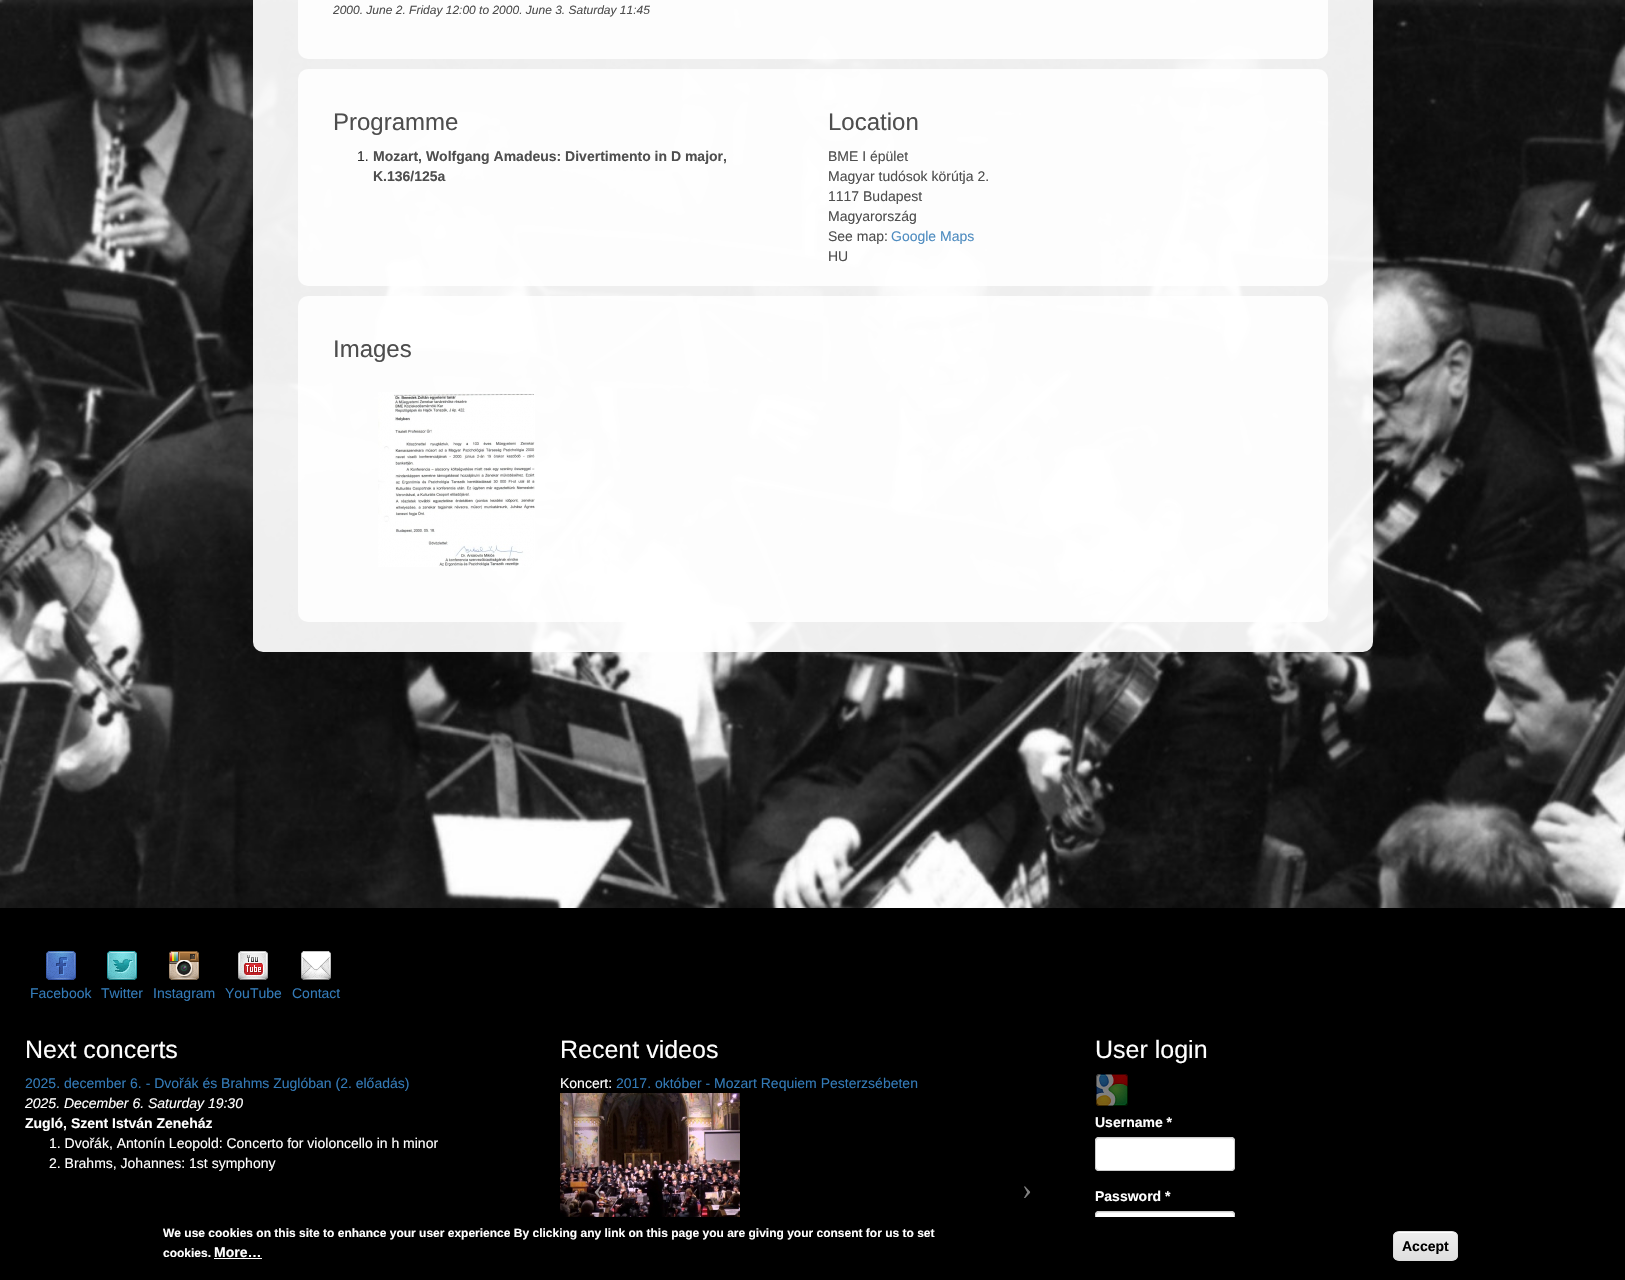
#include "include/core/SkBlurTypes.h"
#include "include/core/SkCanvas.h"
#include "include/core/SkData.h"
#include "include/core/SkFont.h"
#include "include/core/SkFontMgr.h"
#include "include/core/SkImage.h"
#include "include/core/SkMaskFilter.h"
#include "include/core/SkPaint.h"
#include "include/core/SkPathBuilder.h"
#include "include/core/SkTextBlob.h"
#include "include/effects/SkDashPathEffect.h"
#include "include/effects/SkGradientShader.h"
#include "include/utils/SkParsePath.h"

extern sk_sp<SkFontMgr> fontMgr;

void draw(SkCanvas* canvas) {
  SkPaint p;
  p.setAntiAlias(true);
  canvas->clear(SK_ColorWHITE);
  canvas->drawImageRect(SkImages::DeferredFromEncodedData(SkData::MakeFromFileName("images/1.png")), SkRect::MakeLTRB(0, 0, 1625, 908), SkSamplingOptions());
  p.setColor(SkColorSetARGB(237, 255, 255, 255));
  canvas->drawRoundRect(SkRect::MakeLTRB(253, -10, 1373, 652), 10, 10, p);
  p.setColor(SkColorSetARGB(219, 255, 255, 255));
  canvas->drawRoundRect(SkRect::MakeLTRB(298, -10, 1328, 59), 10, 10, p);
  canvas->drawRoundRect(SkRect::MakeLTRB(298, 69, 1328, 286), 10, 10, p);
  canvas->drawRoundRect(SkRect::MakeLTRB(298, 296, 1328, 622), 10, 10, p);
  canvas->drawImageRect(SkImages::DeferredFromEncodedData(SkData::MakeFromFileName("images/2.png")), SkRect::MakeLTRB(378, 392, 535, 567), SkSamplingOptions());
  p.setColor(SK_ColorBLACK);
  canvas->drawRect(SkRect::MakeLTRB(0, 908, 1625, 1217), p);
  canvas->drawImageRect(SkImages::DeferredFromEncodedData(SkData::MakeFromFileName("images/3.png")), SkRect::MakeLTRB(46, 951, 76, 980), SkSamplingOptions());
  canvas->drawImageRect(SkImages::DeferredFromEncodedData(SkData::MakeFromFileName("images/4.png")), SkRect::MakeLTRB(107, 951, 137, 980), SkSamplingOptions());
  canvas->drawImageRect(SkImages::DeferredFromEncodedData(SkData::MakeFromFileName("images/5.png")), SkRect::MakeLTRB(169, 951, 199, 980), SkSamplingOptions());
  canvas->drawImageRect(SkImages::DeferredFromEncodedData(SkData::MakeFromFileName("images/6.png")), SkRect::MakeLTRB(238, 951, 268, 980), SkSamplingOptions());
  canvas->drawImageRect(SkImages::DeferredFromEncodedData(SkData::MakeFromFileName("images/7.png")), SkRect::MakeLTRB(301, 951, 331, 980), SkSamplingOptions());
  canvas->drawImageRect(SkImages::DeferredFromEncodedData(SkData::MakeFromFileName("images/8.png")), SkRect::MakeLTRB(560, 1093, 740, 1217), SkSamplingOptions());
  {
    const SkColor colors[] = {SkColorSetARGB(64, 0, 0, 0), SkColorSetARGB(0, 0, 0, 0)};
    const float stops[] = {0, 1};
    const SkPoint ends[] = {{560, 1183}, {636, 1183}};
    p.setShader(SkGradientShader::MakeLinear(ends, colors, stops, 2, SkTileMode::kClamp));
    p.setAlpha(255);
  }
  canvas->drawRect(SkRect::MakeLTRB(560, 1078, 629, 1217), p);
  canvas->drawImageRect(SkImages::DeferredFromEncodedData(SkData::MakeFromFileName("images/9.png")), SkRect::MakeLTRB(1096, 1074, 1128, 1106), SkSamplingOptions());
  p.setShader(nullptr);
  p.setColor(SK_ColorWHITE);
  canvas->drawRoundRect(SkRect::MakeLTRB(1095, 1137, 1235, 1171), 4, 4, p);
  p.setColor(SkColorSetRGB(236, 236, 236));
  canvas->drawPath(SkPathBuilder().moveTo(1099, 1139).lineTo(1231, 1139).cubicTo(1233, 1139, 1234, 1140, 1234, 1142).cubicTo(1234, 1140, 1234, 1138, 1232, 1138).lineTo(1098, 1138).cubicTo(1096, 1138, 1096, 1140, 1096, 1142).cubicTo(1096, 1140, 1097, 1139, 1099, 1139).close().detach(), p);
  p.setStyle(SkPaint::kStroke_Style);
  p.setStrokeWidth(1);
  p.setColor(SkColorSetRGB(204, 204, 204));
  canvas->drawRoundRect(SkRect::MakeLTRB(1095.5f, 1137.5f, 1234.5f, 1170.5f), 3.5f, 3.5f, p);
  p.setStyle(SkPaint::kFill_Style);
  p.setColor(SK_ColorWHITE);
  canvas->drawRoundRect(SkRect::MakeLTRB(1095, 1211, 1235, 1245), 4, 4, p);
  p.setColor(SkColorSetRGB(236, 236, 236));
  canvas->drawPath(SkPathBuilder().moveTo(1099, 1213).lineTo(1231, 1213).cubicTo(1233, 1213, 1234, 1214, 1234, 1216).cubicTo(1234, 1214, 1234, 1212, 1232, 1212).lineTo(1098, 1212).cubicTo(1096, 1212, 1096, 1214, 1096, 1216).cubicTo(1096, 1214, 1097, 1213, 1099, 1213).close().detach(), p);
  p.setStyle(SkPaint::kStroke_Style);
  p.setColor(SkColorSetRGB(204, 204, 204));
  canvas->drawRoundRect(SkRect::MakeLTRB(1095.5f, 1211.5f, 1234.5f, 1244.5f), 3.5f, 3.5f, p);
  p.setStyle(SkPaint::kFill_Style);
  p.setColor(SK_ColorBLACK);
  canvas->drawRect(SkRect::MakeLTRB(0, 1217, 1625, 1280), p);
  p.setColor(SK_ColorWHITE);
  canvas->drawRect(SkRect::MakeLTRB(214, 1258, 262, 1259), p);
  canvas->save();
  canvas->clipPath(SkPathBuilder().moveTo(1399, 1231).lineTo(1452, 1231).cubicTo(1455.5f, 1231, 1458, 1233.5f, 1458, 1237).lineTo(1458, 1255).cubicTo(1458, 1258.5f, 1455.5f, 1261, 1452, 1261).lineTo(1399, 1261).cubicTo(1395.5f, 1261, 1393, 1258.5f, 1393, 1255).lineTo(1393, 1237).cubicTo(1393, 1233.5f, 1395.5f, 1231, 1399, 1231).close().detach(), true);
  {
    const SkColor colors[] = {SkColorSetRGB(237, 237, 237), SkColorSetRGB(223, 223, 223)};
    const float stops[] = {0.05f, 1};
    const SkPoint ends[] = {{1426, 1232}, {1426, 1260}};
    p.setShader(SkGradientShader::MakeLinear(ends, colors, stops, 2, SkTileMode::kClamp));
    p.setAlpha(255);
  }
  canvas->drawRect(SkRect::MakeLTRB(1393, 1232, 1458, 1260), p);
  canvas->restore();
  p.setShader(nullptr);
  p.setColor(SK_ColorWHITE);
  canvas->drawPath(SkPathBuilder().moveTo(1399, 1233).lineTo(1452, 1233).cubicTo(1455, 1233, 1457, 1235, 1457, 1238).cubicTo(1457, 1230, 1449, 1232, 1443, 1232).lineTo(1408, 1232).cubicTo(1402, 1232, 1394, 1230, 1394, 1238).cubicTo(1394, 1235, 1396, 1233, 1399, 1233).close().detach(), p);
  p.setStyle(SkPaint::kStroke_Style);
  p.setColor(SkColorSetRGB(220, 220, 220));
  canvas->drawRoundRect(SkRect::MakeLTRB(1393.5f, 1231.5f, 1457.5f, 1260.5f), 5.5f, 5.5f, p);
  SkFont font1(fontMgr->matchFamilyStyle("Liberation Sans", SkFontStyle::Italic()), 12);
  font1.setSubpixel(true);
  p.setStyle(SkPaint::kFill_Style);
  p.setColor(SkColorSetRGB(78, 78, 78));
  canvas->drawString("2000. June 2. Friday 12:00 to 2000. June 3. Saturday 11:45", 333, 14, font1, p);
  SkFont font2(fontMgr->matchFamilyStyle("Liberation Sans", SkFontStyle::Normal()), 24);
  font2.setSubpixel(true);
  canvas->drawString("Programme", 333, 130, font2, p);
  SkFont font3(fontMgr->matchFamilyStyle("Liberation Sans", SkFontStyle::Normal()), 14);
  font3.setSubpixel(true);
  p.setColor(SkColorSetRGB(46, 46, 46));
  canvas->drawString("1.", 357, 161, font3, p);
  SkFont font4(fontMgr->matchFamilyStyle("Liberation Sans", SkFontStyle::Bold()), 14);
  font4.setSubpixel(true);
  p.setColor(SkColorSetRGB(78, 78, 78));
  canvas->drawString("Mozart, Wolfgang Amadeus: Divertimento in D major,", 373, 161, font4, p);
  canvas->drawString("K.136/125a", 373, 181, font4, p);
  canvas->drawString("Location", 828, 130, font2, p);
  canvas->drawString("BME I épület", 828, 161, font3, p);
  canvas->drawString("Magyar tudósok körútja 2.", 828, 181, font3, p);
  canvas->drawString("1117 Budapest", 828, 201, font3, p);
  canvas->drawString("Magyarország", 828, 221, font3, p);
  canvas->drawString("See map:", 828, 241, font3, p);
  p.setColor(SkColorSetRGB(78, 140, 192));
  canvas->drawString("Google Maps", 891, 241, font3, p);
  p.setColor(SkColorSetRGB(78, 78, 78));
  canvas->drawString("HU", 828, 261, font3, p);
  canvas->drawString("Images", 333, 357, font2, p);
  p.setColor(SkColorSetRGB(51, 122, 183));
  canvas->drawString("Facebook", 30, 998, font3, p);
  canvas->drawString("Twitter", 101, 998, font3, p);
  canvas->drawString("Instagram", 153, 998, font3, p);
  canvas->drawString("YouTube", 225, 998, font3, p);
  canvas->drawString("Contact", 292, 998, font3, p);
  SkFont font5(fontMgr->matchFamilyStyle("Liberation Sans", SkFontStyle::Normal()), 25);
  font5.setSubpixel(true);
  p.setColor(SK_ColorWHITE);
  canvas->drawString("Next concerts", 25, 1058, font5, p);
  p.setColor(SkColorSetRGB(51, 122, 183));
  canvas->drawString("2025. december 6. - Dvořák és Brahms Zuglóban (2. előadás)", 25, 1088, font3, p);
  SkFont font6(fontMgr->matchFamilyStyle("Liberation Sans", SkFontStyle::Italic()), 14);
  font6.setSubpixel(true);
  p.setColor(SK_ColorWHITE);
  canvas->drawString("2025. December 6. Saturday 19:30", 25, 1108, font6, p);
  canvas->drawString("Zugló, Szent István Zeneház", 25, 1128, font4, p);
  canvas->drawString("1. Dvořák, Antonín Leopold: Concerto for violoncello in h minor", 49, 1148, font3, p);
  canvas->drawString("2. Brahms, Johannes: 1st symphony", 49, 1168, font3, p);
  canvas->drawString("Recent videos", 560, 1058, font5, p);
  canvas->drawString("Koncert:", 560, 1088, font3, p);
  p.setColor(SkColorSetRGB(51, 122, 183));
  canvas->drawString("2017. október - Mozart Requiem Pesterzsébeten", 616, 1088, font3, p);
  SkFont font7(fontMgr->matchFamilyStyle("Liberation Serif", SkFontStyle::Normal()), 30);
  font7.setSubpixel(true);
  p.setColor(SkColorSetRGB(154, 144, 144));
  canvas->drawString("‹", 593, 1199, font7, p);
  p.setColor(SkColorSetRGB(128, 128, 128));
  canvas->drawString("›", 1022, 1199, font7, p);
  p.setColor(SK_ColorWHITE);
  canvas->drawString("User login", 1095, 1058, font5, p);
  canvas->drawString("Username *", 1095, 1127, font4, p);
  canvas->drawString("Password *", 1095, 1201, font4, p);
  SkFont font8(fontMgr->matchFamilyStyle("Liberation Sans", SkFontStyle::Bold()), 12);
  font8.setSubpixel(true);
  canvas->drawString("We use cookies on this site to enhance your user experience By clicking any link on this page you are giving your consent for us to set", 163, 1237, font8, p);
  canvas->drawString("cookies.", 163, 1257, font8, p);
  canvas->drawString("More…", 214, 1257, font4, p);
  p.setColor(SK_ColorBLACK);
  canvas->drawString("Accept", 1402, 1251, font4, p);
}
